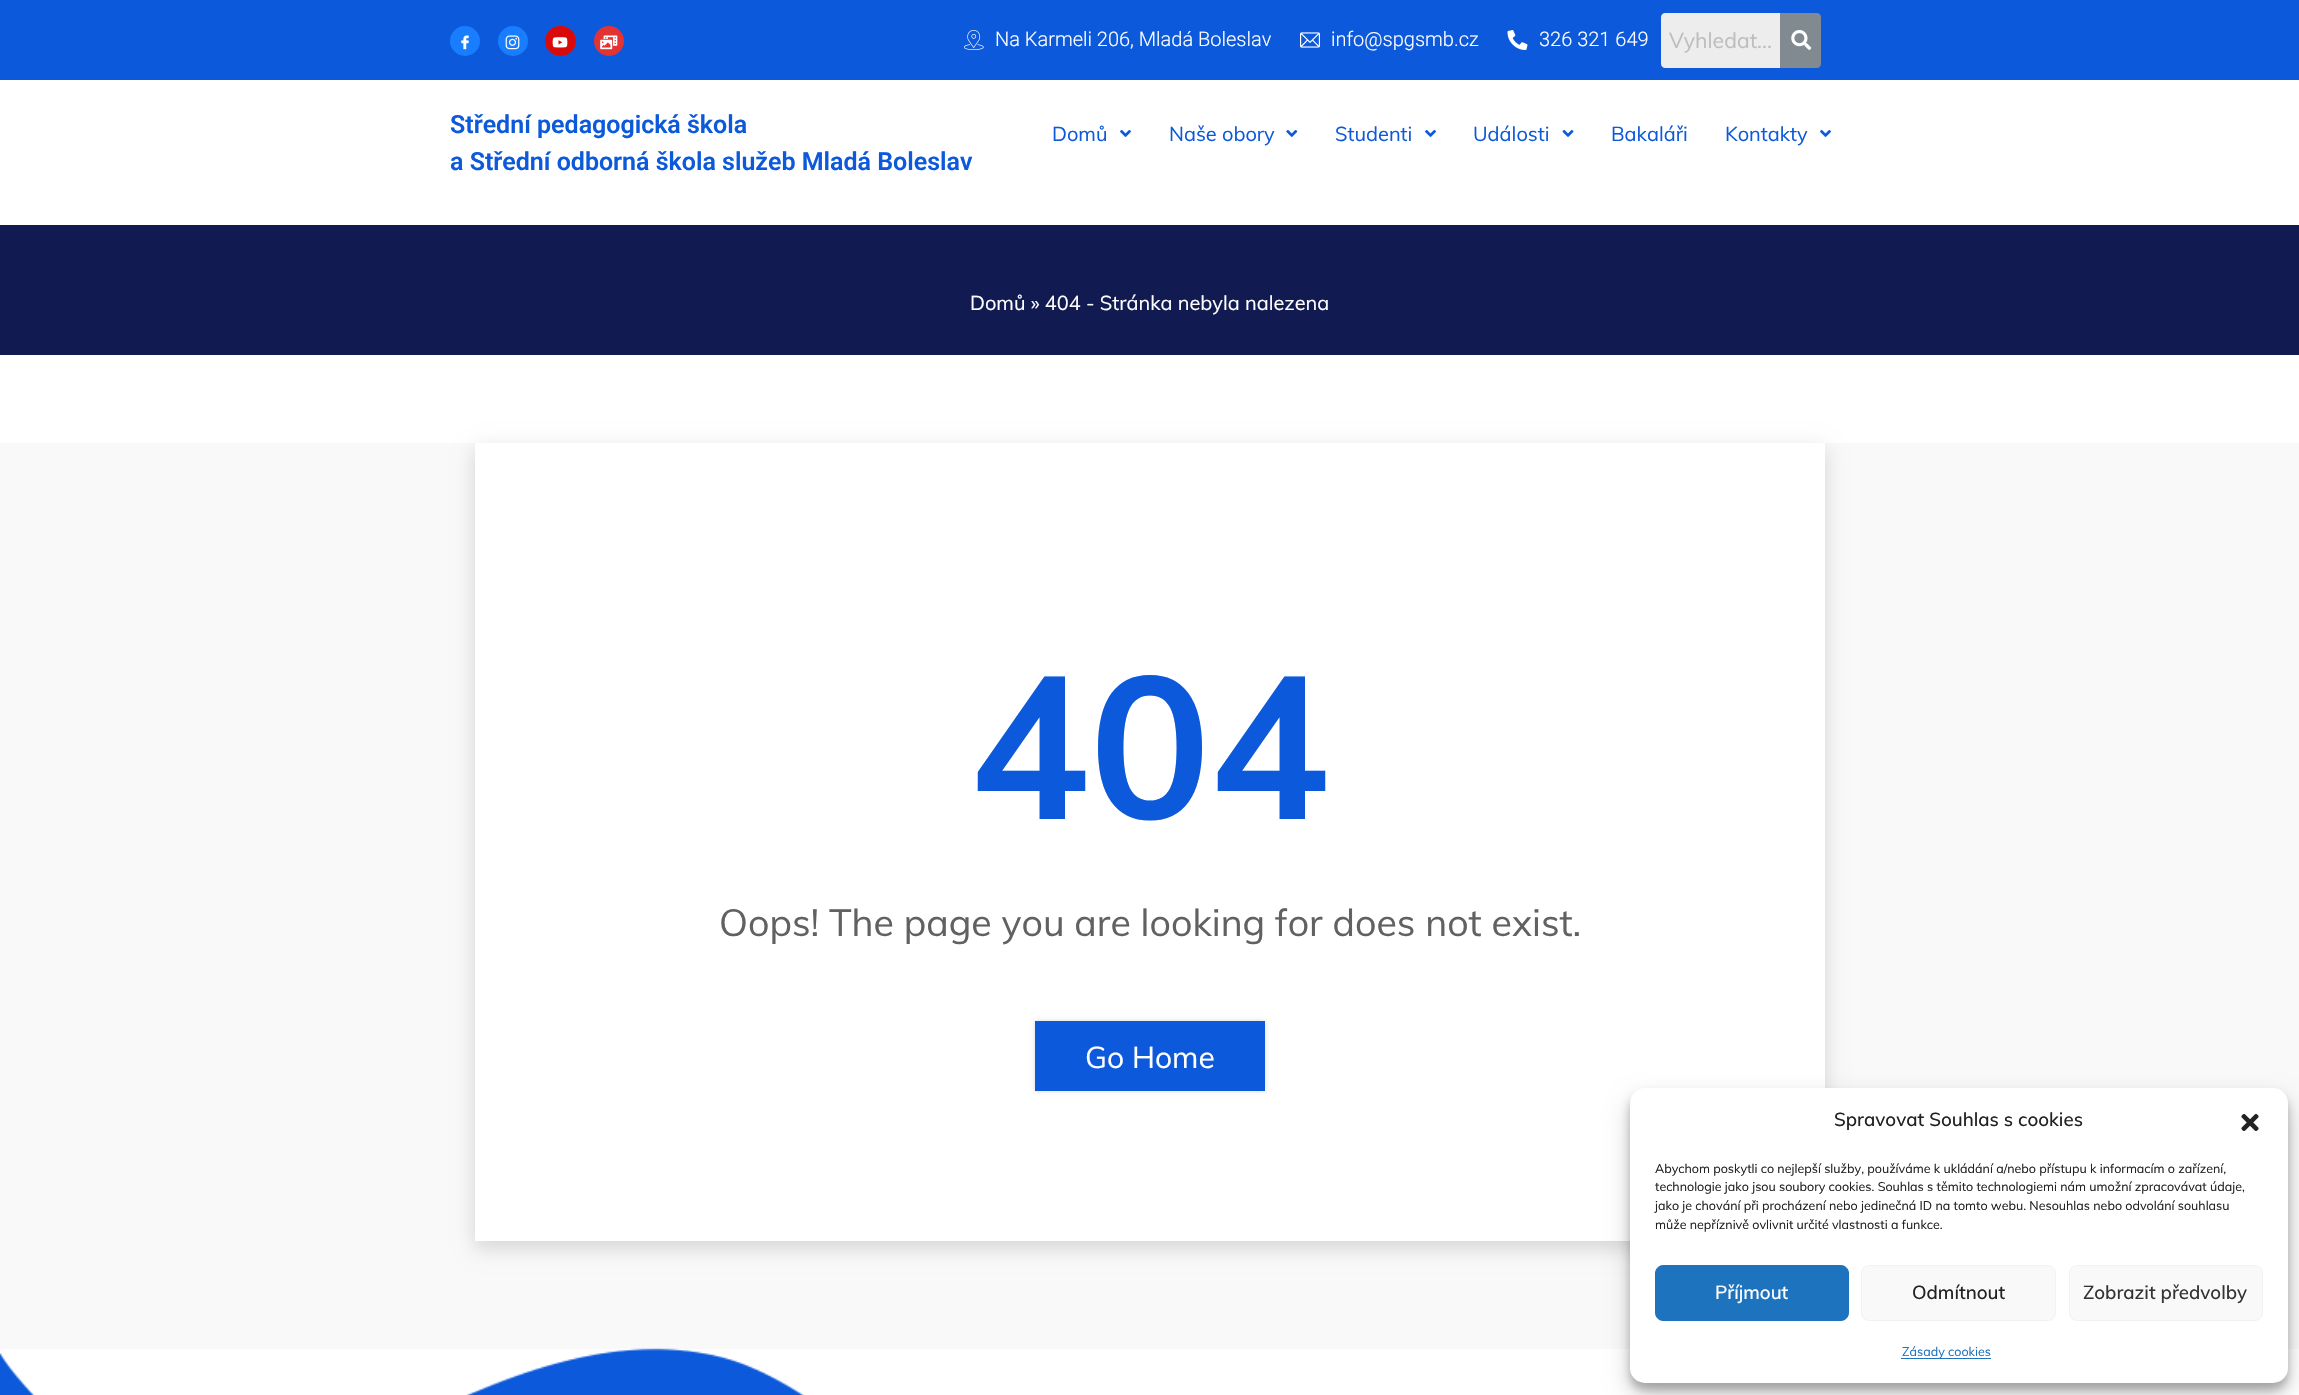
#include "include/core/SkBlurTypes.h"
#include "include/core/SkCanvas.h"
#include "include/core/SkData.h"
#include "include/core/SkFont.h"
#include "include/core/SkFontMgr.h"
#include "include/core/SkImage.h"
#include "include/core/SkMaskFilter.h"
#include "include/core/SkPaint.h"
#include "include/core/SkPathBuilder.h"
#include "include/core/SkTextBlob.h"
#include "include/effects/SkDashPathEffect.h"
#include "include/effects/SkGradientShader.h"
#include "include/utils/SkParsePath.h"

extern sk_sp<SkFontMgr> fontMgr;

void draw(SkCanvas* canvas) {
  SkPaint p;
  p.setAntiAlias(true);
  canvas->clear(SK_ColorWHITE);
  p.setColor(SkColorSetRGB(12, 90, 219));
  canvas->drawRect(SkRect::MakeLTRB(0, 0, 2299, 80), p);
  p.setColor(SkColorSetRGB(24, 125, 255));
  canvas->drawCircle(465, 41, 15, p);
  canvas->drawImageRect(SkImages::DeferredFromEncodedData(SkData::MakeFromFileName("images/1.png")), SkRect::MakeLTRB(461, 35, 469, 50), SkSamplingOptions());
  canvas->drawCircle(513, 41, 15, p);
  canvas->drawImageRect(SkImages::DeferredFromEncodedData(SkData::MakeFromFileName("images/2.png")), SkRect::MakeLTRB(505, 35, 520, 50), SkSamplingOptions());
  p.setColor(SkColorSetRGB(218, 10, 10));
  canvas->drawRoundRect(SkRect::MakeLTRB(545, 26, 576, 56), 15, 15, p);
  canvas->drawImageRect(SkImages::DeferredFromEncodedData(SkData::MakeFromFileName("images/3.png")), SkRect::MakeLTRB(552, 37, 568, 48), SkSamplingOptions());
  p.setColor(SkColorSetRGB(227, 51, 51));
  canvas->drawCircle(609, 41, 15, p);
  canvas->drawImageRect(SkImages::DeferredFromEncodedData(SkData::MakeFromFileName("images/4.png")), SkRect::MakeLTRB(600, 35, 618, 50), SkSamplingOptions());
  canvas->drawImageRect(SkImages::DeferredFromEncodedData(SkData::MakeFromFileName("images/5.png")), SkRect::MakeLTRB(964, 30, 984, 50), SkSamplingOptions());
  canvas->drawImageRect(SkImages::DeferredFromEncodedData(SkData::MakeFromFileName("images/6.png")), SkRect::MakeLTRB(1300, 32, 1320, 48), SkSamplingOptions());
  canvas->drawImageRect(SkImages::DeferredFromEncodedData(SkData::MakeFromFileName("images/7.png")), SkRect::MakeLTRB(1507, 30, 1528, 50), SkSamplingOptions());
  p.setColor(SkColorSetRGB(237, 237, 237));
  canvas->drawPath(SkPathBuilder().moveTo(1665, 13).lineTo(1780, 13).lineTo(1780, 68).lineTo(1665, 68).cubicTo(1663, 68, 1661, 66, 1661, 64).lineTo(1661, 17).cubicTo(1661, 15, 1663, 13, 1665, 13).close().detach(), p);
  p.setColor(SkColorSetRGB(129, 138, 145));
  canvas->drawPath(SkPathBuilder().moveTo(1780, 13).lineTo(1817, 13).cubicTo(1819, 13, 1821, 15, 1821, 17).lineTo(1821, 64).cubicTo(1821, 66, 1819, 68, 1817, 68).lineTo(1780, 68).close().detach(), p);
  canvas->drawImageRect(SkImages::DeferredFromEncodedData(SkData::MakeFromFileName("images/8.png")), SkRect::MakeLTRB(1791, 30, 1812, 50), SkSamplingOptions());
  canvas->drawImageRect(SkImages::DeferredFromEncodedData(SkData::MakeFromFileName("images/9.png")), SkRect::MakeLTRB(1120, 130, 1131, 137), SkSamplingOptions());
  canvas->drawImageRect(SkImages::DeferredFromEncodedData(SkData::MakeFromFileName("images/10.png")), SkRect::MakeLTRB(1286, 130, 1298, 137), SkSamplingOptions());
  canvas->drawImageRect(SkImages::DeferredFromEncodedData(SkData::MakeFromFileName("images/9.png")), SkRect::MakeLTRB(1425, 130, 1436, 137), SkSamplingOptions());
  canvas->drawImageRect(SkImages::DeferredFromEncodedData(SkData::MakeFromFileName("images/11.png")), SkRect::MakeLTRB(1562, 130, 1574, 137), SkSamplingOptions());
  canvas->drawImageRect(SkImages::DeferredFromEncodedData(SkData::MakeFromFileName("images/9.png")), SkRect::MakeLTRB(1820, 130, 1831, 137), SkSamplingOptions());
  p.setColor(SkColorSetRGB(18, 27, 81));
  canvas->drawRect(SkRect::MakeLTRB(0, 225, 2299, 355), p);
  p.setColor(SkColorSetRGB(249, 249, 249));
  canvas->drawRect(SkRect::MakeLTRB(0, 443, 2299, 1349), p);
  p.setColor(SkColorSetARGB(38, 0, 0, 0));
  p.setMaskFilter(SkMaskFilter::MakeBlur(kNormal_SkBlurStyle, 9.5f));
  canvas->drawRect(SkRect::MakeLTRB(475, 449, 1825, 1248), p);
  p.setMaskFilter(nullptr);
  p.setColor(SK_ColorWHITE);
  canvas->drawRect(SkRect::MakeLTRB(475, 443, 1825, 1241), p);
  p.setColor(SkColorSetARGB(38, 0, 0, 0));
  p.setMaskFilter(SkMaskFilter::MakeBlur(kNormal_SkBlurStyle, 2.5f));
  canvas->drawRect(SkRect::MakeLTRB(1035, 1021, 1265, 1091), p);
  p.setMaskFilter(nullptr);
  p.setColor(SkColorSetRGB(12, 90, 219));
  canvas->drawRect(SkRect::MakeLTRB(1035, 1021, 1265, 1091), p);
  canvas->drawImageRect(SkImages::DeferredFromEncodedData(SkData::MakeFromFileName("images/12.png")), SkRect::MakeLTRB(0, 1348, 804, 1395), SkSamplingOptions());
  p.setColor(SkColorSetARGB(59, 0, 0, 0));
  p.setMaskFilter(SkMaskFilter::MakeBlur(kNormal_SkBlurStyle, 4));
  canvas->drawRoundRect(SkRect::MakeLTRB(1630, 1095, 2288, 1390), 15, 15, p);
  p.setMaskFilter(nullptr);
  p.setColor(SkColorSetARGB(48, 0, 0, 0));
  p.setMaskFilter(SkMaskFilter::MakeBlur(kNormal_SkBlurStyle, 12.5f));
  canvas->drawRoundRect(SkRect::MakeLTRB(1630, 1100, 2288, 1395), 15, 15, p);
  p.setMaskFilter(nullptr);
  p.setColor(SK_ColorWHITE);
  canvas->drawRoundRect(SkRect::MakeLTRB(1630, 1088, 2288, 1383), 15, 15, p);
  canvas->drawImageRect(SkImages::DeferredFromEncodedData(SkData::MakeFromFileName("images/13.png")), SkRect::MakeLTRB(2241, 1113, 2259, 1131), SkSamplingOptions());
  p.setColor(SkColorSetRGB(30, 115, 190));
  canvas->drawRoundRect(SkRect::MakeLTRB(1655.5f, 1265.5f, 1848.5f, 1320.5f), 7.5f, 7.5f, p);
  p.setStyle(SkPaint::kStroke_Style);
  p.setStrokeWidth(1);
  canvas->drawRoundRect(SkRect::MakeLTRB(1655.5f, 1265.5f, 1848.5f, 1320.5f), 7.5f, 7.5f, p);
  p.setStyle(SkPaint::kFill_Style);
  p.setColor(SkColorSetRGB(249, 249, 249));
  canvas->drawRoundRect(SkRect::MakeLTRB(1861.5f, 1265.5f, 2055.5f, 1320.5f), 7.5f, 7.5f, p);
  p.setStyle(SkPaint::kStroke_Style);
  p.setColor(SkColorSetRGB(242, 242, 242));
  canvas->drawRoundRect(SkRect::MakeLTRB(1861.5f, 1265.5f, 2055.5f, 1320.5f), 7.5f, 7.5f, p);
  p.setStyle(SkPaint::kFill_Style);
  p.setColor(SkColorSetRGB(249, 249, 249));
  canvas->drawRoundRect(SkRect::MakeLTRB(2069.5f, 1265.5f, 2262.5f, 1320.5f), 7.5f, 7.5f, p);
  p.setStyle(SkPaint::kStroke_Style);
  p.setColor(SkColorSetRGB(242, 242, 242));
  canvas->drawRoundRect(SkRect::MakeLTRB(2069.5f, 1265.5f, 2262.5f, 1320.5f), 7.5f, 7.5f, p);
  p.setStyle(SkPaint::kFill_Style);
  p.setColor(SkColorSetRGB(30, 115, 190));
  canvas->drawRect(SkRect::MakeLTRB(1901, 1358, 1991, 1359), p);
  SkFont font1(fontMgr->matchFamilyStyle("Roboto", SkFontStyle(300, SkFontStyle::kNormal_Width, SkFontStyle::kUpright_Slant)), 20);
  font1.setSubpixel(true);
  p.setColor(SK_ColorWHITE);
  canvas->drawString("Na Karmeli 206, Mladá Boleslav", 995, 46, font1, p);
  canvas->drawString("info@spgsmb.cz", 1331, 46, font1, p);
  canvas->drawString("326 321 649", 1539, 46, font1, p);
  SkFont font2(fontMgr->matchFamilyStyle("Muli", SkFontStyle::Normal()), 21.25f);
  font2.setSubpixel(true);
  p.setColor(SkColorSetRGB(189, 189, 189));
  canvas->drawString("Vyhledat...", 1669, 48, font2, p);
  SkFont font3(fontMgr->matchFamilyStyle("Roboto", SkFontStyle(600, SkFontStyle::kNormal_Width, SkFontStyle::kUpright_Slant)), 25);
  font3.setSubpixel(true);
  p.setColor(SkColorSetRGB(12, 90, 219));
  canvas->drawString("Střední pedagogická škola", 450, 133, font3, p);
  canvas->drawString("a Střední odborná škola služeb Mladá Boleslav", 450, 170, font3, p);
  SkFont font4(fontMgr->matchFamilyStyle("Muli", SkFontStyle::Normal()), 20);
  font4.setSubpixel(true);
  canvas->drawString("Domů", 1052, 141, font4, p);
  canvas->drawString("Naše obory", 1169, 141, font4, p);
  canvas->drawString("Studenti", 1335, 141, font4, p);
  canvas->drawString("Události", 1473, 141, font4, p);
  canvas->drawString("Bakaláři", 1611, 141, font4, p);
  canvas->drawString("Kontakty", 1725, 141, font4, p);
  p.setColor(SK_ColorWHITE);
  canvas->drawString("Domů » 404 - Stránka nebyla nalezena", 970, 310, font4, p);
  SkFont font5(fontMgr->matchFamilyStyle("Muli", SkFontStyle::Bold()), 200);
  font5.setSubpixel(true);
  p.setColor(SkColorSetRGB(12, 90, 219));
  canvas->drawString("404", 970, 819, font5, p);
  SkFont font6(fontMgr->matchFamilyStyle("Muli", SkFontStyle::Normal()), 37.5f);
  font6.setSubpixel(true);
  p.setColor(SkColorSetRGB(97, 97, 97));
  canvas->drawString("Oops! The page you are looking for does not exist.", 719, 936, font6, p);
  SkFont font7(fontMgr->matchFamilyStyle("Muli", SkFontStyle::Normal()), 30);
  font7.setSubpixel(true);
  p.setColor(SK_ColorWHITE);
  canvas->drawString("Go Home", 1085, 1068, font7, p);
  SkFont font8(fontMgr->matchFamilyStyle("Muli", SkFontStyle(500, SkFontStyle::kNormal_Width, SkFontStyle::kUpright_Slant)), 18.75f);
  font8.setSubpixel(true);
  p.setColor(SkColorSetRGB(34, 34, 34));
  canvas->drawString("Spravovat Souhlas s cookies", 1834, 1126, font8, p);
  SkFont font9(fontMgr->matchFamilyStyle("Muli", SkFontStyle::Normal()), 12.5f);
  font9.setSubpixel(true);
  canvas->drawString("Abychom poskytli co nejlepší služby, používáme k ukládání a/nebo přístupu k informacím o zařízení,", 1655, 1173, font9, p);
  canvas->drawString("technologie jako jsou soubory cookies. Souhlas s těmito technologiemi nám umožní zpracovávat údaje,", 1655, 1191, font9, p);
  canvas->drawString("jako je chování při procházení nebo jedinečná ID na tomto webu. Nesouhlas nebo odvolání souhlasu", 1655, 1210, font9, p);
  canvas->drawString("může nepříznivě ovlivnit určité vlastnosti a funkce.", 1655, 1229, font9, p);
  p.setColor(SK_ColorWHITE);
  canvas->drawString("Příjmout", 1715, 1299, font8, p);
  p.setColor(SkColorSetRGB(34, 34, 34));
  canvas->drawString("Odmítnout", 1912, 1299, font8, p);
  p.setColor(SkColorSetRGB(51, 51, 51));
  canvas->drawString("Zobrazit předvolby", 2083, 1299, font8, p);
  p.setColor(SkColorSetRGB(30, 115, 190));
  canvas->drawString("Zásady cookies", 1902, 1356, font9, p);
}
